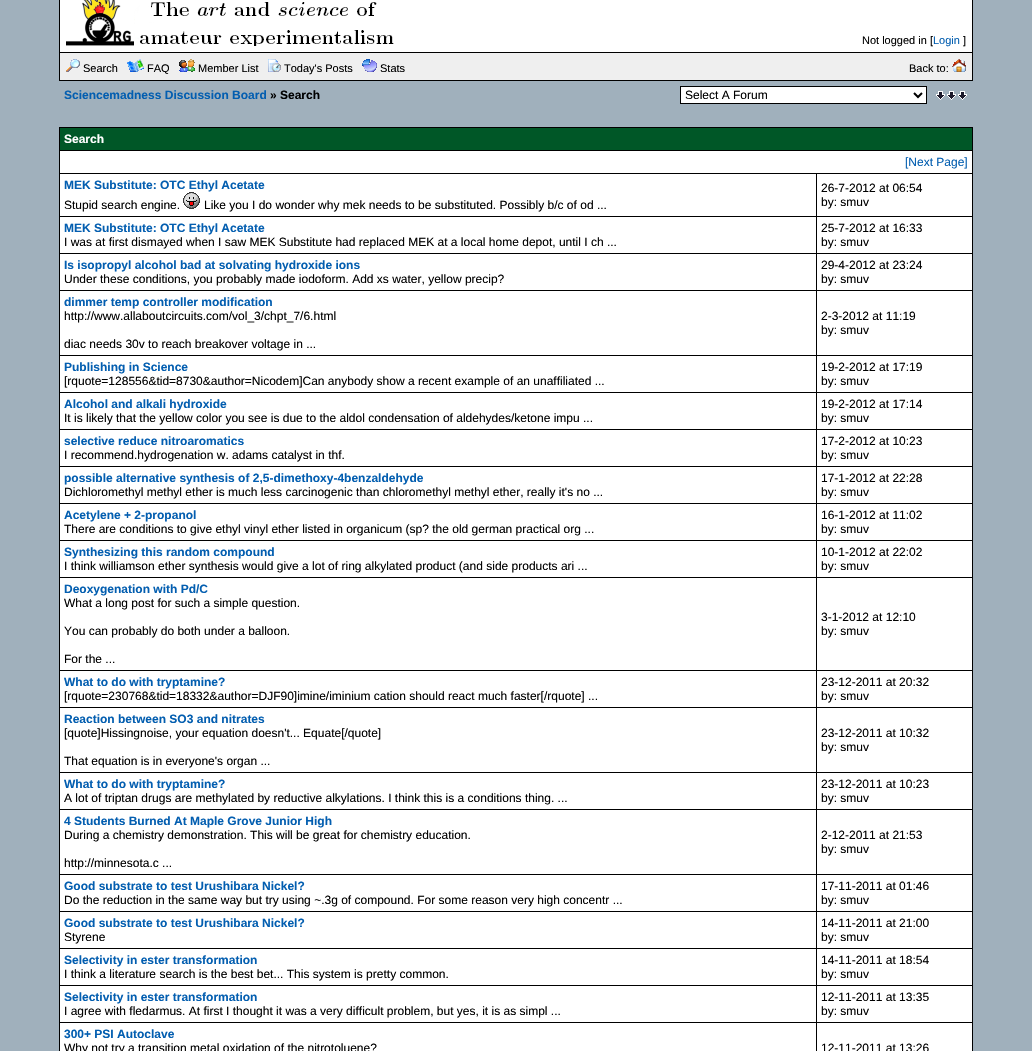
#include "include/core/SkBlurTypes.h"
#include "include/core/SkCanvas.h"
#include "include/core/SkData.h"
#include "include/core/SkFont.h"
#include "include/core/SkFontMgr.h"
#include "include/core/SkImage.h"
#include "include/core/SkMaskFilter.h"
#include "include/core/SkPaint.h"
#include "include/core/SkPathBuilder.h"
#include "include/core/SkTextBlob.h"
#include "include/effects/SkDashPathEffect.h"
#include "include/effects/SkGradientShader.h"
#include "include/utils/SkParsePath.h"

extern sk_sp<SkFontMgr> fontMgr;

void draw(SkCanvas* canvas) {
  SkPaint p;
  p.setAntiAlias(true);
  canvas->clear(SkColorSetRGB(160, 176, 188));
  p.setColor(SK_ColorBLACK);
  canvas->drawRect(SkRect::MakeLTRB(59, 0, 973, 81), p);
  p.setColor(SK_ColorWHITE);
  canvas->drawRect(SkRect::MakeLTRB(60, 0, 972, 52), p);
  canvas->drawImageRect(SkImages::DeferredFromEncodedData(SkData::MakeFromFileName("images/1.png")), SkRect::MakeLTRB(66, 0, 394, 46), SkSamplingOptions());
  p.setColor(SkColorSetRGB(239, 239, 239));
  canvas->drawRect(SkRect::MakeLTRB(60, 53, 972, 80), p);
  canvas->drawImageRect(SkImages::DeferredFromEncodedData(SkData::MakeFromFileName("images/2.png")), SkRect::MakeLTRB(66, 59, 80, 72), SkSamplingOptions());
  canvas->drawImageRect(SkImages::DeferredFromEncodedData(SkData::MakeFromFileName("images/3.png")), SkRect::MakeLTRB(127, 59, 144, 72), SkSamplingOptions());
  canvas->drawImageRect(SkImages::DeferredFromEncodedData(SkData::MakeFromFileName("images/4.png")), SkRect::MakeLTRB(179, 59, 195, 72), SkSamplingOptions());
  canvas->drawImageRect(SkImages::DeferredFromEncodedData(SkData::MakeFromFileName("images/5.png")), SkRect::MakeLTRB(268, 59, 281, 72), SkSamplingOptions());
  canvas->drawImageRect(SkImages::DeferredFromEncodedData(SkData::MakeFromFileName("images/6.png")), SkRect::MakeLTRB(362, 59, 377, 72), SkSamplingOptions());
  canvas->drawImageRect(SkImages::DeferredFromEncodedData(SkData::MakeFromFileName("images/7.png")), SkRect::MakeLTRB(952, 59, 966, 72), SkSamplingOptions());
  p.setColor(SK_ColorWHITE);
  canvas->drawRect(SkRect::MakeLTRB(680.5f, 86.5f, 926.5f, 103.5f), p);
  p.setStyle(SkPaint::kStroke_Style);
  p.setStrokeWidth(1);
  p.setColor(SK_ColorBLACK);
  canvas->drawRect(SkRect::MakeLTRB(680.5f, 86.5f, 926.5f, 103.5f), p);
  p.setStrokeWidth(2);
  canvas->drawPath(SkPathBuilder().moveTo(914, 93).lineTo(918, 97).lineTo(922, 93).detach(), p);
  canvas->drawImageRect(SkImages::DeferredFromEncodedData(SkData::MakeFromFileName("images/8.png")), SkRect::MakeLTRB(936, 91, 967, 100), SkSamplingOptions());
  p.setStyle(SkPaint::kFill_Style);
  canvas->drawRect(SkRect::MakeLTRB(59, 127, 973, 1051), p);
  p.setColor(SkColorSetRGB(0, 87, 39));
  canvas->drawRect(SkRect::MakeLTRB(60, 128, 972, 150), p);
  p.setColor(SK_ColorWHITE);
  canvas->drawRect(SkRect::MakeLTRB(60, 151, 972, 173), p);
  canvas->drawRect(SkRect::MakeLTRB(60, 174, 816, 216), p);
  canvas->drawImageRect(SkImages::DeferredFromEncodedData(SkData::MakeFromFileName("images/9.png")), SkRect::MakeLTRB(183, 192, 200, 209), SkSamplingOptions());
  canvas->drawRect(SkRect::MakeLTRB(817, 174, 972, 216), p);
  canvas->drawRect(SkRect::MakeLTRB(60, 217, 816, 253), p);
  canvas->drawRect(SkRect::MakeLTRB(817, 217, 972, 253), p);
  canvas->drawRect(SkRect::MakeLTRB(60, 254, 816, 290), p);
  canvas->drawRect(SkRect::MakeLTRB(817, 254, 972, 290), p);
  canvas->drawRect(SkRect::MakeLTRB(60, 291, 816, 355), p);
  canvas->drawRect(SkRect::MakeLTRB(817, 291, 972, 355), p);
  canvas->drawRect(SkRect::MakeLTRB(60, 356, 816, 392), p);
  canvas->drawRect(SkRect::MakeLTRB(817, 356, 972, 392), p);
  canvas->drawRect(SkRect::MakeLTRB(60, 393, 816, 429), p);
  canvas->drawRect(SkRect::MakeLTRB(817, 393, 972, 429), p);
  canvas->drawRect(SkRect::MakeLTRB(60, 430, 816, 466), p);
  canvas->drawRect(SkRect::MakeLTRB(817, 430, 972, 466), p);
  canvas->drawRect(SkRect::MakeLTRB(60, 467, 816, 503), p);
  canvas->drawRect(SkRect::MakeLTRB(817, 467, 972, 503), p);
  canvas->drawRect(SkRect::MakeLTRB(60, 504, 816, 540), p);
  canvas->drawRect(SkRect::MakeLTRB(817, 504, 972, 540), p);
  canvas->drawRect(SkRect::MakeLTRB(60, 541, 816, 577), p);
  canvas->drawRect(SkRect::MakeLTRB(817, 541, 972, 577), p);
  canvas->drawRect(SkRect::MakeLTRB(60, 578, 816, 670), p);
  canvas->drawRect(SkRect::MakeLTRB(817, 578, 972, 670), p);
  canvas->drawRect(SkRect::MakeLTRB(60, 671, 816, 707), p);
  canvas->drawRect(SkRect::MakeLTRB(817, 671, 972, 707), p);
  canvas->drawRect(SkRect::MakeLTRB(60, 708, 816, 772), p);
  canvas->drawRect(SkRect::MakeLTRB(817, 708, 972, 772), p);
  canvas->drawRect(SkRect::MakeLTRB(60, 773, 816, 809), p);
  canvas->drawRect(SkRect::MakeLTRB(817, 773, 972, 809), p);
  canvas->drawRect(SkRect::MakeLTRB(60, 810, 816, 874), p);
  canvas->drawRect(SkRect::MakeLTRB(817, 810, 972, 874), p);
  canvas->drawRect(SkRect::MakeLTRB(60, 875, 816, 911), p);
  canvas->drawRect(SkRect::MakeLTRB(817, 875, 972, 911), p);
  canvas->drawRect(SkRect::MakeLTRB(60, 912, 816, 948), p);
  canvas->drawRect(SkRect::MakeLTRB(817, 912, 972, 948), p);
  canvas->drawRect(SkRect::MakeLTRB(60, 949, 816, 985), p);
  canvas->drawRect(SkRect::MakeLTRB(817, 949, 972, 985), p);
  canvas->drawRect(SkRect::MakeLTRB(60, 986, 816, 1022), p);
  canvas->drawRect(SkRect::MakeLTRB(817, 986, 972, 1022), p);
  canvas->drawRect(SkRect::MakeLTRB(60, 1023, 816, 1051), p);
  canvas->drawRect(SkRect::MakeLTRB(817, 1023, 972, 1051), p);
  SkFont font1(fontMgr->matchFamilyStyle("Liberation Sans", SkFontStyle::Normal()), 11);
  font1.setSubpixel(true);
  p.setColor(SK_ColorBLACK);
  canvas->drawString("Not logged in [", 862, 44, font1, p);
  p.setColor(SkColorSetRGB(3, 94, 176));
  canvas->drawString("Login", 933, 44, font1, p);
  p.setColor(SK_ColorBLACK);
  canvas->drawString("]", 963, 44, font1, p);
  canvas->drawString("Search", 83, 72, font1, p);
  canvas->drawString("FAQ", 147, 72, font1, p);
  canvas->drawString("Member List", 198, 72, font1, p);
  canvas->drawString("Today's Posts", 284, 72, font1, p);
  canvas->drawString("Stats", 380, 72, font1, p);
  canvas->drawString("Back to:", 909, 72, font1, p);
  SkFont font2(fontMgr->matchFamilyStyle("Liberation Sans", SkFontStyle::Bold()), 12);
  font2.setSubpixel(true);
  p.setColor(SkColorSetRGB(3, 94, 176));
  canvas->drawString("Sciencemadness Discussion Board", 64, 99, font2, p);
  p.setColor(SK_ColorBLACK);
  canvas->drawString("» Search", 270, 99, font2, p);
  SkFont font3(fontMgr->matchFamilyStyle("Liberation Sans", SkFontStyle::Normal()), 12);
  font3.setSubpixel(true);
  canvas->drawString("Select A Forum", 685, 99, font3, p);
  p.setColor(SK_ColorWHITE);
  canvas->drawString("Search", 64, 143, font2, p);
  p.setColor(SkColorSetRGB(3, 94, 176));
  canvas->drawString("[Next Page]", 905, 166, font3, p);
  canvas->drawString("MEK Substitute: OTC Ethyl Acetate", 64, 189, font2, p);
  p.setColor(SK_ColorBLACK);
  canvas->drawString("Stupid search engine.", 64, 209, font3, p);
  canvas->drawString("Like you I do wonder why mek needs to be substituted. Possibly b/c of od ...", 204, 209, font3, p);
  canvas->drawString("26-7-2012 at 06:54", 821, 192, font3, p);
  canvas->drawString("by: smuv", 821, 206, font3, p);
  p.setColor(SkColorSetRGB(3, 94, 176));
  canvas->drawString("MEK Substitute: OTC Ethyl Acetate", 64, 232, font2, p);
  p.setColor(SK_ColorBLACK);
  canvas->drawString("I was at first dismayed when I saw MEK Substitute had replaced MEK at a local home depot, until I ch ...", 64, 246, font3, p);
  canvas->drawString("25-7-2012 at 16:33", 821, 232, font3, p);
  canvas->drawString("by: smuv", 821, 246, font3, p);
  p.setColor(SkColorSetRGB(3, 94, 176));
  canvas->drawString("Is isopropyl alcohol bad at solvating hydroxide ions", 64, 269, font2, p);
  p.setColor(SK_ColorBLACK);
  canvas->drawString("Under these conditions, you probably made iodoform. Add xs water, yellow precip?", 64, 283, font3, p);
  canvas->drawString("29-4-2012 at 23:24", 821, 269, font3, p);
  canvas->drawString("by: smuv", 821, 283, font3, p);
  p.setColor(SkColorSetRGB(3, 94, 176));
  canvas->drawString("dimmer temp controller modification", 64, 306, font2, p);
  p.setColor(SK_ColorBLACK);
  canvas->drawString("http://www.allaboutcircuits.com/vol_3/chpt_7/6.html", 64, 320, font3, p);
  canvas->drawString("diac needs 30v to reach breakover voltage in ...", 64, 348, font3, p);
  canvas->drawString("2-3-2012 at 11:19", 821, 320, font3, p);
  canvas->drawString("by: smuv", 821, 334, font3, p);
  p.setColor(SkColorSetRGB(3, 94, 176));
  canvas->drawString("Publishing in Science", 64, 371, font2, p);
  p.setColor(SK_ColorBLACK);
  canvas->drawString("[rquote=128556&tid=8730&author=Nicodem]Can anybody show a recent example of an unaffiliated ...", 64, 385, font3, p);
  canvas->drawString("19-2-2012 at 17:19", 821, 371, font3, p);
  canvas->drawString("by: smuv", 821, 385, font3, p);
  p.setColor(SkColorSetRGB(3, 94, 176));
  canvas->drawString("Alcohol and alkali hydroxide", 64, 408, font2, p);
  p.setColor(SK_ColorBLACK);
  canvas->drawString("It is likely that the yellow color you see is due to the aldol condensation of aldehydes/ketone impu ...", 64, 422, font3, p);
  canvas->drawString("19-2-2012 at 17:14", 821, 408, font3, p);
  canvas->drawString("by: smuv", 821, 422, font3, p);
  p.setColor(SkColorSetRGB(3, 94, 176));
  canvas->drawString("selective reduce nitroaromatics", 64, 445, font2, p);
  p.setColor(SK_ColorBLACK);
  canvas->drawString("I recommend.hydrogenation w. adams catalyst in thf.", 64, 459, font3, p);
  canvas->drawString("17-2-2012 at 10:23", 821, 445, font3, p);
  canvas->drawString("by: smuv", 821, 459, font3, p);
  p.setColor(SkColorSetRGB(3, 94, 176));
  canvas->drawString("possible alternative synthesis of 2,5-dimethoxy-4benzaldehyde", 64, 482, font2, p);
  p.setColor(SK_ColorBLACK);
  canvas->drawString("Dichloromethyl methyl ether is much less carcinogenic than chloromethyl methyl ether, really it's no ...", 64, 496, font3, p);
  canvas->drawString("17-1-2012 at 22:28", 821, 482, font3, p);
  canvas->drawString("by: smuv", 821, 496, font3, p);
  p.setColor(SkColorSetRGB(3, 94, 176));
  canvas->drawString("Acetylene + 2-propanol", 64, 519, font2, p);
  p.setColor(SK_ColorBLACK);
  canvas->drawString("There are conditions to give ethyl vinyl ether listed in organicum (sp? the old german practical org ...", 64, 533, font3, p);
  canvas->drawString("16-1-2012 at 11:02", 821, 519, font3, p);
  canvas->drawString("by: smuv", 821, 533, font3, p);
  p.setColor(SkColorSetRGB(3, 94, 176));
  canvas->drawString("Synthesizing this random compound", 64, 556, font2, p);
  p.setColor(SK_ColorBLACK);
  canvas->drawString("I think williamson ether synthesis would give a lot of ring alkylated product (and side products ari ...", 64, 570, font3, p);
  canvas->drawString("10-1-2012 at 22:02", 821, 556, font3, p);
  canvas->drawString("by: smuv", 821, 570, font3, p);
  p.setColor(SkColorSetRGB(3, 94, 176));
  canvas->drawString("Deoxygenation with Pd/C", 64, 593, font2, p);
  p.setColor(SK_ColorBLACK);
  canvas->drawString("What a long post for such a simple question.", 64, 607, font3, p);
  canvas->drawString("You can probably do both under a balloon.", 64, 635, font3, p);
  canvas->drawString("For the ...", 64, 663, font3, p);
  canvas->drawString("3-1-2012 at 12:10", 821, 621, font3, p);
  canvas->drawString("by: smuv", 821, 635, font3, p);
  p.setColor(SkColorSetRGB(3, 94, 176));
  canvas->drawString("What to do with tryptamine?", 64, 686, font2, p);
  p.setColor(SK_ColorBLACK);
  canvas->drawString("[rquote=230768&tid=18332&author=DJF90]imine/iminium cation should react much faster[/rquote] ...", 64, 700, font3, p);
  canvas->drawString("23-12-2011 at 20:32", 821, 686, font3, p);
  canvas->drawString("by: smuv", 821, 700, font3, p);
  p.setColor(SkColorSetRGB(3, 94, 176));
  canvas->drawString("Reaction between SO3 and nitrates", 64, 723, font2, p);
  p.setColor(SK_ColorBLACK);
  canvas->drawString("[quote]Hissingnoise, your equation doesn't... Equate[/quote]", 64, 737, font3, p);
  canvas->drawString("That equation is in everyone's organ ...", 64, 765, font3, p);
  canvas->drawString("23-12-2011 at 10:32", 821, 737, font3, p);
  canvas->drawString("by: smuv", 821, 751, font3, p);
  p.setColor(SkColorSetRGB(3, 94, 176));
  canvas->drawString("What to do with tryptamine?", 64, 788, font2, p);
  p.setColor(SK_ColorBLACK);
  canvas->drawString("A lot of triptan drugs are methylated by reductive alkylations. I think this is a conditions thing. ...", 64, 802, font3, p);
  canvas->drawString("23-12-2011 at 10:23", 821, 788, font3, p);
  canvas->drawString("by: smuv", 821, 802, font3, p);
  p.setColor(SkColorSetRGB(3, 94, 176));
  canvas->drawString("4 Students Burned At Maple Grove Junior High", 64, 825, font2, p);
  p.setColor(SK_ColorBLACK);
  canvas->drawString("During a chemistry demonstration. This will be great for chemistry education.", 64, 839, font3, p);
  canvas->drawString("http://minnesota.c ...", 64, 867, font3, p);
  canvas->drawString("2-12-2011 at 21:53", 821, 839, font3, p);
  canvas->drawString("by: smuv", 821, 853, font3, p);
  p.setColor(SkColorSetRGB(3, 94, 176));
  canvas->drawString("Good substrate to test Urushibara Nickel?", 64, 890, font2, p);
  p.setColor(SK_ColorBLACK);
  canvas->drawString("Do the reduction in the same way but try using ~.3g of compound. For some reason very high concentr ...", 64, 904, font3, p);
  canvas->drawString("17-11-2011 at 01:46", 821, 890, font3, p);
  canvas->drawString("by: smuv", 821, 904, font3, p);
  p.setColor(SkColorSetRGB(3, 94, 176));
  canvas->drawString("Good substrate to test Urushibara Nickel?", 64, 927, font2, p);
  p.setColor(SK_ColorBLACK);
  canvas->drawString("Styrene", 64, 941, font3, p);
  canvas->drawString("14-11-2011 at 21:00", 821, 927, font3, p);
  canvas->drawString("by: smuv", 821, 941, font3, p);
  p.setColor(SkColorSetRGB(3, 94, 176));
  canvas->drawString("Selectivity in ester transformation", 64, 964, font2, p);
  p.setColor(SK_ColorBLACK);
  canvas->drawString("I think a literature search is the best bet... This system is pretty common.", 64, 978, font3, p);
  canvas->drawString("14-11-2011 at 18:54", 821, 964, font3, p);
  canvas->drawString("by: smuv", 821, 978, font3, p);
  p.setColor(SkColorSetRGB(3, 94, 176));
  canvas->drawString("Selectivity in ester transformation", 64, 1001, font2, p);
  p.setColor(SK_ColorBLACK);
  canvas->drawString("I agree with fledarmus. At first I thought it was a very difficult problem, but yes, it is as simpl ...", 64, 1015, font3, p);
  canvas->drawString("12-11-2011 at 13:35", 821, 1001, font3, p);
  canvas->drawString("by: smuv", 821, 1015, font3, p);
  p.setColor(SkColorSetRGB(3, 94, 176));
  canvas->drawString("300+ PSI Autoclave", 64, 1038, font2, p);
  p.setColor(SK_ColorBLACK);
  canvas->drawString("Why not try a transition metal oxidation of the nitrotoluene?", 64, 1052, font3, p);
  canvas->drawString("12-11-2011 at 13:26", 821, 1052, font3, p);
}
